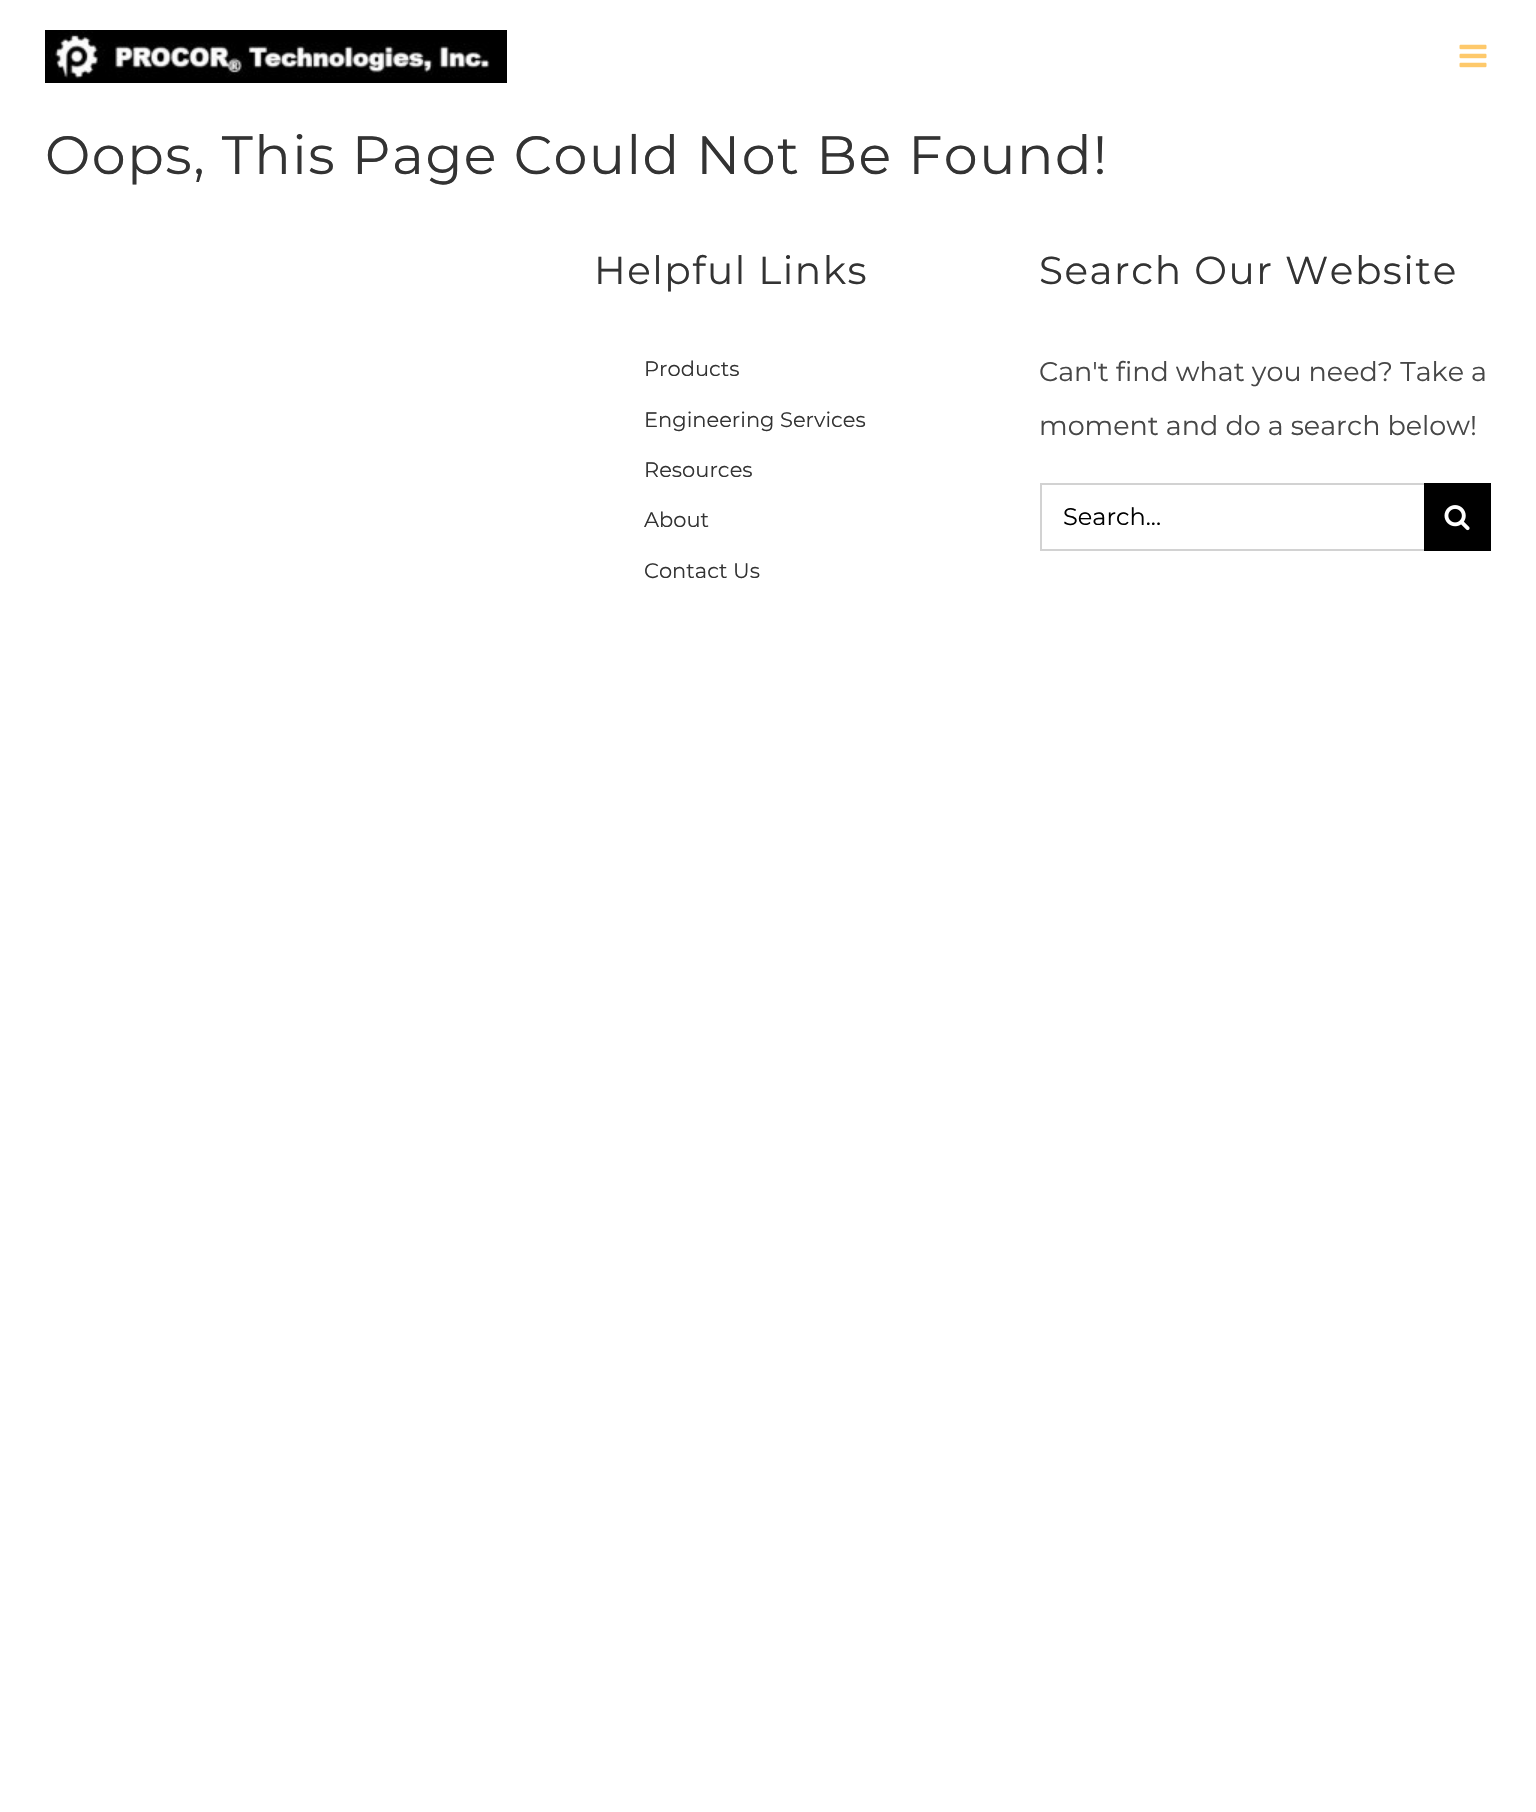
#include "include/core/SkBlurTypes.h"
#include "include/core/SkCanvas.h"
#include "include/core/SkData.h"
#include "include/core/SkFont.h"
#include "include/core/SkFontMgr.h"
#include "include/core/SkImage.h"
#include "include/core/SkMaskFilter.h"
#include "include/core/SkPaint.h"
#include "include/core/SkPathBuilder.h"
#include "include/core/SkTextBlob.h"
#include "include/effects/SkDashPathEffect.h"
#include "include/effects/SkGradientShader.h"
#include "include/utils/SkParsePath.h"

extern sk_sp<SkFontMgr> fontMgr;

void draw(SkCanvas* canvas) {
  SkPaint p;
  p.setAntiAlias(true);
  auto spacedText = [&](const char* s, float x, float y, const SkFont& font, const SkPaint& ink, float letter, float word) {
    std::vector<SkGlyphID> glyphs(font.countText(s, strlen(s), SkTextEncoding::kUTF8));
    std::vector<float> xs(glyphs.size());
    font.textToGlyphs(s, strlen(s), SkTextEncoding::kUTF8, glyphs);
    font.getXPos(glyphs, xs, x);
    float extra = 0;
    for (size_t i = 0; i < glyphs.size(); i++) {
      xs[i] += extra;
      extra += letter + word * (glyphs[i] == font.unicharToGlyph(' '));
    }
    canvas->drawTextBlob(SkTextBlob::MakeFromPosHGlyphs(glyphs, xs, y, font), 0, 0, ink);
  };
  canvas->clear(SK_ColorWHITE);
  canvas->drawImageRect(SkImages::DeferredFromEncodedData(SkData::MakeFromFileName("images/1.png")), SkRect::MakeLTRB(45, 30, 507, 83), SkSamplingOptions());
  canvas->drawImageRect(SkImages::DeferredFromEncodedData(SkData::MakeFromFileName("images/2.png")), SkRect::MakeLTRB(1459, 44, 1487, 68), SkSamplingOptions());
  p.setColor(SkColorSetRGB(210, 210, 210));
  canvas->drawRect(SkRect::MakeLTRB(1040, 483, 1424, 485), p);
  canvas->drawRect(SkRect::MakeLTRB(1040, 549, 1424, 551), p);
  canvas->drawRect(SkRect::MakeLTRB(1040, 483, 1042, 551), p);
  p.setColor(SK_ColorBLACK);
  canvas->drawRect(SkRect::MakeLTRB(1424, 483, 1491, 551), p);
  canvas->drawImageRect(SkImages::DeferredFromEncodedData(SkData::MakeFromFileName("images/3.png")), SkRect::MakeLTRB(1444, 505, 1470, 531), SkSamplingOptions());
  SkFont font1(fontMgr->matchFamilyStyle("Montserrat", SkFontStyle::Normal()), 54);
  font1.setSubpixel(true);
  p.setColor(SkColorSetRGB(51, 51, 51));
  spacedText("Oops, This Page Could Not Be Found!", 45, 174, font1, p, 1.5f, 0);
  SkFont font2(fontMgr->matchFamilyStyle("Montserrat", SkFontStyle::Normal()), 39);
  font2.setSubpixel(true);
  spacedText("Helpful Links", 594, 284, font2, p, 1.5f, 0);
  SkFont font3(fontMgr->matchFamilyStyle("Montserrat", SkFontStyle::Normal()), 21);
  font3.setSubpixel(true);
  canvas->drawString("Products", 644, 376, font3, p);
  canvas->drawString("Engineering Services", 644, 427, font3, p);
  canvas->drawString("Resources", 644, 477, font3, p);
  canvas->drawString("About", 644, 527, font3, p);
  canvas->drawString("Contact Us", 644, 578, font3, p);
  spacedText("Search Our Website", 1039, 284, font2, p, 1.5f, 0);
  SkFont font4(fontMgr->matchFamilyStyle("Montserrat", SkFontStyle::Normal()), 27);
  font4.setSubpixel(true);
  p.setColor(SkColorSetRGB(71, 71, 71));
  canvas->drawString("Can't find what you need? Take a", 1039, 381, font4, p);
  canvas->drawString("moment and do a search below!", 1039, 435, font4, p);
  SkFont font5(fontMgr->matchFamilyStyle("Montserrat", SkFontStyle::Normal()), 24);
  font5.setSubpixel(true);
  p.setColor(SK_ColorBLACK);
  canvas->drawString("Search...", 1063, 525, font5, p);
}
